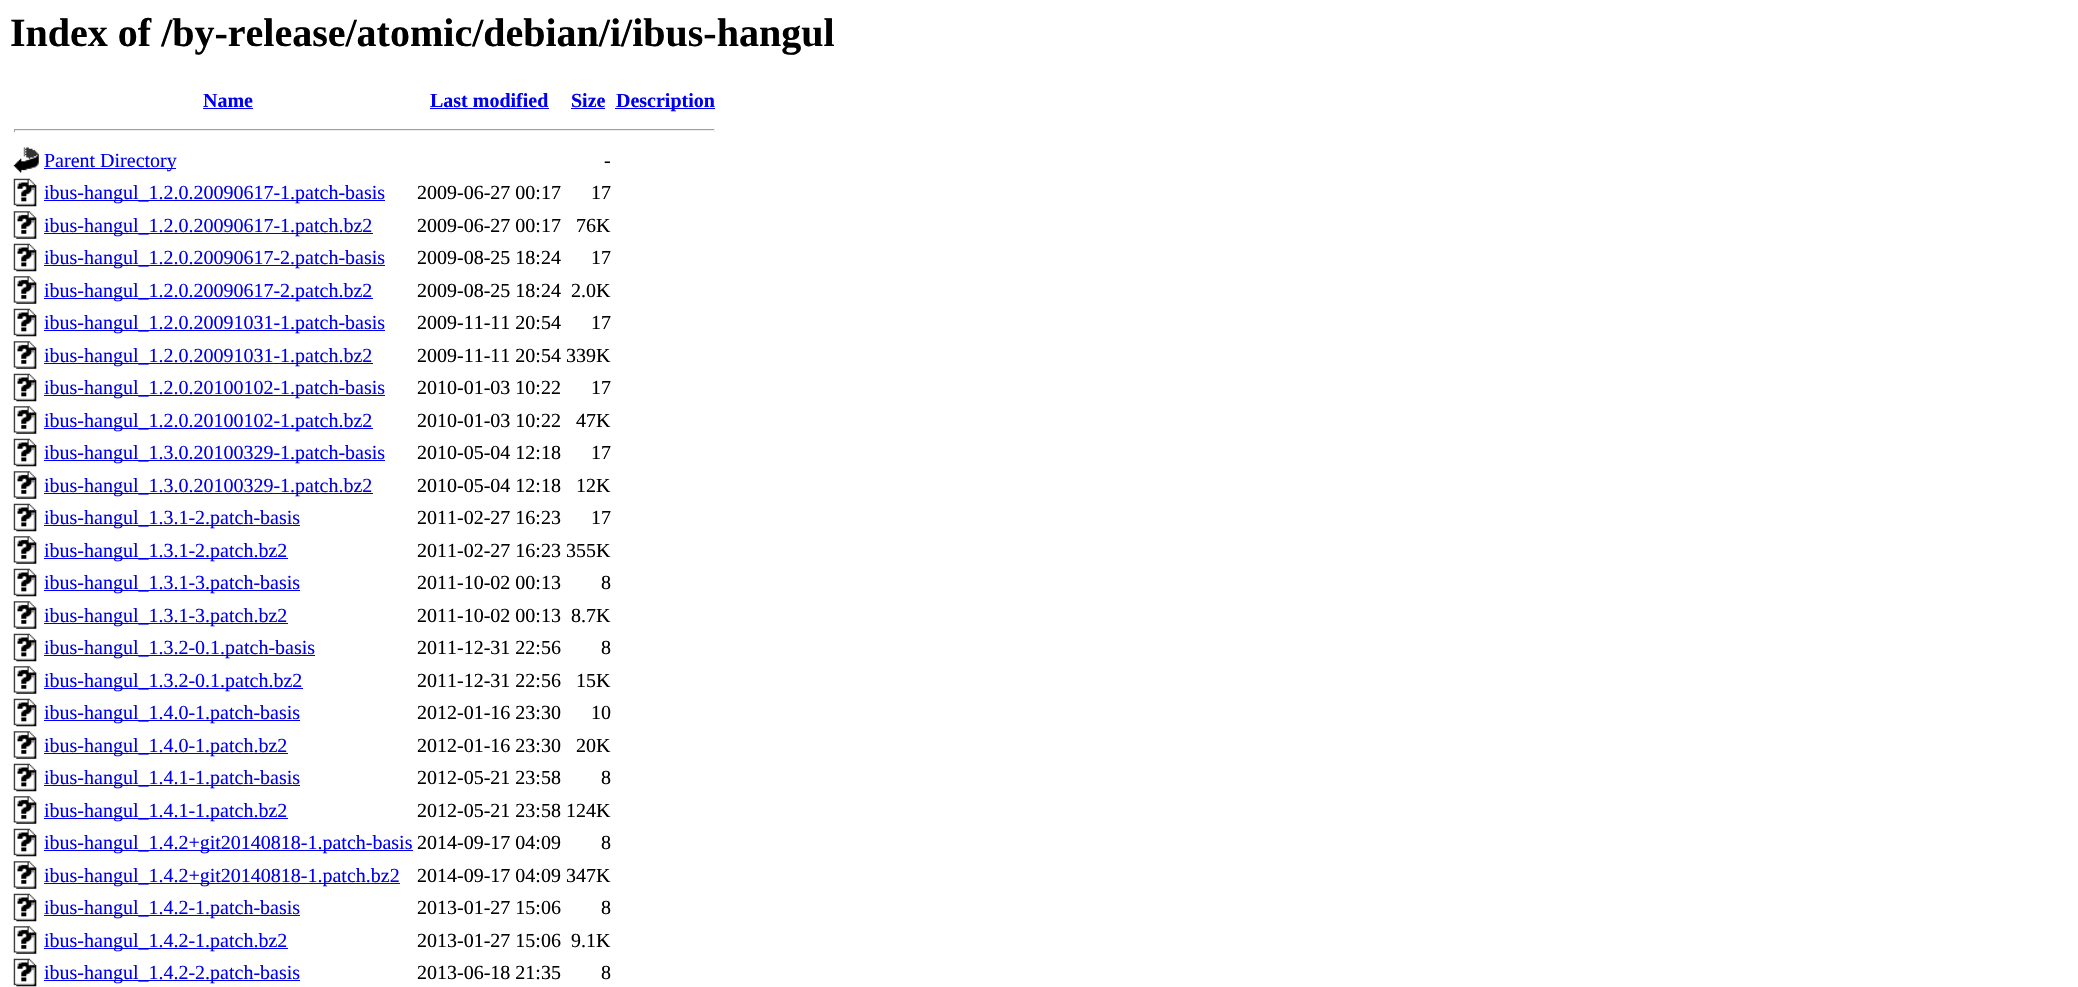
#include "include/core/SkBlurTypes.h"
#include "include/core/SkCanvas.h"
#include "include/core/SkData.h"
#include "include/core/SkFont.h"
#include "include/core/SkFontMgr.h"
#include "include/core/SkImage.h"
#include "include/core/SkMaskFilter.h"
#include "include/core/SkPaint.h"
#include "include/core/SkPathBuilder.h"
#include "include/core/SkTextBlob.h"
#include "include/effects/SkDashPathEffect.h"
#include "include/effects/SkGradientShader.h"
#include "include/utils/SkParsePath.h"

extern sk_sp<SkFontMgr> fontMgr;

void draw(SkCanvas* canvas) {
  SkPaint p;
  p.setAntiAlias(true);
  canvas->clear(SK_ColorWHITE);
  p.setColor(SkColorSetRGB(0, 0, 238));
  canvas->drawRect(SkRect::MakeLTRB(203, 108, 253, 109), p);
  canvas->drawRect(SkRect::MakeLTRB(430, 108, 549, 109), p);
  canvas->drawRect(SkRect::MakeLTRB(571, 108, 605, 109), p);
  canvas->drawRect(SkRect::MakeLTRB(615, 108, 715, 109), p);
  p.setColor(SkColorSetRGB(159, 159, 159));
  canvas->drawRect(SkRect::MakeLTRB(14, 129, 715, 130), p);
  p.setColor(SkColorSetRGB(238, 238, 238));
  canvas->drawRect(SkRect::MakeLTRB(714, 129, 715, 132), p);
  canvas->drawRect(SkRect::MakeLTRB(14, 130, 715, 131), p);
  p.setColor(SkColorSetRGB(159, 159, 159));
  canvas->drawRect(SkRect::MakeLTRB(14, 129, 15, 132), p);
  canvas->drawImageRect(SkImages::DeferredFromEncodedData(SkData::MakeFromFileName("images/1.png")), SkRect::MakeLTRB(13, 147, 39, 173), SkSamplingOptions());
  p.setColor(SkColorSetRGB(0, 0, 238));
  canvas->drawRect(SkRect::MakeLTRB(44, 168, 176, 169), p);
  canvas->drawImageRect(SkImages::DeferredFromEncodedData(SkData::MakeFromFileName("images/2.png")), SkRect::MakeLTRB(13, 178, 37, 207), SkSamplingOptions());
  canvas->drawRect(SkRect::MakeLTRB(44, 200, 385, 201), p);
  canvas->drawImageRect(SkImages::DeferredFromEncodedData(SkData::MakeFromFileName("images/3.png")), SkRect::MakeLTRB(13, 211, 37, 239), SkSamplingOptions());
  canvas->drawRect(SkRect::MakeLTRB(44, 233, 373, 234), p);
  canvas->drawImageRect(SkImages::DeferredFromEncodedData(SkData::MakeFromFileName("images/2.png")), SkRect::MakeLTRB(13, 243, 37, 272), SkSamplingOptions());
  canvas->drawRect(SkRect::MakeLTRB(44, 265, 385, 266), p);
  canvas->drawImageRect(SkImages::DeferredFromEncodedData(SkData::MakeFromFileName("images/4.png")), SkRect::MakeLTRB(13, 276, 37, 304), SkSamplingOptions());
  canvas->drawRect(SkRect::MakeLTRB(44, 298, 373, 299), p);
  canvas->drawImageRect(SkImages::DeferredFromEncodedData(SkData::MakeFromFileName("images/2.png")), SkRect::MakeLTRB(13, 308, 37, 337), SkSamplingOptions());
  canvas->drawRect(SkRect::MakeLTRB(44, 330, 385, 331), p);
  canvas->drawImageRect(SkImages::DeferredFromEncodedData(SkData::MakeFromFileName("images/3.png")), SkRect::MakeLTRB(13, 341, 37, 369), SkSamplingOptions());
  canvas->drawRect(SkRect::MakeLTRB(44, 363, 373, 364), p);
  canvas->drawImageRect(SkImages::DeferredFromEncodedData(SkData::MakeFromFileName("images/2.png")), SkRect::MakeLTRB(13, 373, 37, 402), SkSamplingOptions());
  canvas->drawRect(SkRect::MakeLTRB(44, 395, 385, 396), p);
  canvas->drawImageRect(SkImages::DeferredFromEncodedData(SkData::MakeFromFileName("images/3.png")), SkRect::MakeLTRB(13, 406, 37, 434), SkSamplingOptions());
  canvas->drawRect(SkRect::MakeLTRB(44, 428, 373, 429), p);
  canvas->drawImageRect(SkImages::DeferredFromEncodedData(SkData::MakeFromFileName("images/2.png")), SkRect::MakeLTRB(13, 438, 37, 467), SkSamplingOptions());
  canvas->drawRect(SkRect::MakeLTRB(44, 460, 385, 461), p);
  canvas->drawImageRect(SkImages::DeferredFromEncodedData(SkData::MakeFromFileName("images/3.png")), SkRect::MakeLTRB(13, 471, 37, 499), SkSamplingOptions());
  canvas->drawRect(SkRect::MakeLTRB(44, 493, 373, 494), p);
  canvas->drawImageRect(SkImages::DeferredFromEncodedData(SkData::MakeFromFileName("images/2.png")), SkRect::MakeLTRB(13, 503, 37, 532), SkSamplingOptions());
  canvas->drawRect(SkRect::MakeLTRB(44, 525, 300, 526), p);
  canvas->drawImageRect(SkImages::DeferredFromEncodedData(SkData::MakeFromFileName("images/3.png")), SkRect::MakeLTRB(13, 536, 37, 564), SkSamplingOptions());
  canvas->drawRect(SkRect::MakeLTRB(44, 558, 288, 559), p);
  canvas->drawImageRect(SkImages::DeferredFromEncodedData(SkData::MakeFromFileName("images/2.png")), SkRect::MakeLTRB(13, 568, 37, 597), SkSamplingOptions());
  canvas->drawRect(SkRect::MakeLTRB(44, 590, 300, 591), p);
  canvas->drawImageRect(SkImages::DeferredFromEncodedData(SkData::MakeFromFileName("images/3.png")), SkRect::MakeLTRB(13, 601, 37, 629), SkSamplingOptions());
  canvas->drawRect(SkRect::MakeLTRB(44, 623, 288, 624), p);
  canvas->drawImageRect(SkImages::DeferredFromEncodedData(SkData::MakeFromFileName("images/2.png")), SkRect::MakeLTRB(13, 633, 37, 662), SkSamplingOptions());
  canvas->drawRect(SkRect::MakeLTRB(44, 655, 315, 656), p);
  canvas->drawImageRect(SkImages::DeferredFromEncodedData(SkData::MakeFromFileName("images/3.png")), SkRect::MakeLTRB(13, 666, 37, 694), SkSamplingOptions());
  canvas->drawRect(SkRect::MakeLTRB(44, 688, 303, 689), p);
  canvas->drawImageRect(SkImages::DeferredFromEncodedData(SkData::MakeFromFileName("images/2.png")), SkRect::MakeLTRB(13, 698, 37, 727), SkSamplingOptions());
  canvas->drawRect(SkRect::MakeLTRB(44, 720, 300, 721), p);
  canvas->drawImageRect(SkImages::DeferredFromEncodedData(SkData::MakeFromFileName("images/3.png")), SkRect::MakeLTRB(13, 731, 37, 759), SkSamplingOptions());
  canvas->drawRect(SkRect::MakeLTRB(44, 753, 288, 754), p);
  canvas->drawImageRect(SkImages::DeferredFromEncodedData(SkData::MakeFromFileName("images/2.png")), SkRect::MakeLTRB(13, 763, 37, 792), SkSamplingOptions());
  canvas->drawRect(SkRect::MakeLTRB(44, 785, 300, 786), p);
  canvas->drawImageRect(SkImages::DeferredFromEncodedData(SkData::MakeFromFileName("images/3.png")), SkRect::MakeLTRB(13, 796, 37, 824), SkSamplingOptions());
  canvas->drawRect(SkRect::MakeLTRB(44, 818, 288, 819), p);
  canvas->drawImageRect(SkImages::DeferredFromEncodedData(SkData::MakeFromFileName("images/2.png")), SkRect::MakeLTRB(13, 828, 37, 857), SkSamplingOptions());
  canvas->drawRect(SkRect::MakeLTRB(44, 850, 413, 851), p);
  canvas->drawImageRect(SkImages::DeferredFromEncodedData(SkData::MakeFromFileName("images/3.png")), SkRect::MakeLTRB(13, 861, 37, 889), SkSamplingOptions());
  canvas->drawRect(SkRect::MakeLTRB(44, 883, 400, 884), p);
  canvas->drawImageRect(SkImages::DeferredFromEncodedData(SkData::MakeFromFileName("images/2.png")), SkRect::MakeLTRB(13, 893, 37, 922), SkSamplingOptions());
  canvas->drawRect(SkRect::MakeLTRB(44, 915, 300, 916), p);
  canvas->drawImageRect(SkImages::DeferredFromEncodedData(SkData::MakeFromFileName("images/3.png")), SkRect::MakeLTRB(13, 926, 37, 954), SkSamplingOptions());
  canvas->drawRect(SkRect::MakeLTRB(44, 948, 288, 949), p);
  canvas->drawImageRect(SkImages::DeferredFromEncodedData(SkData::MakeFromFileName("images/2.png")), SkRect::MakeLTRB(13, 958, 37, 987), SkSamplingOptions());
  canvas->drawRect(SkRect::MakeLTRB(44, 980, 300, 981), p);
  SkFont font1(fontMgr->matchFamilyStyle("Liberation Serif", SkFontStyle::Bold()), 40);
  font1.setSubpixel(true);
  p.setColor(SK_ColorBLACK);
  canvas->drawString("Index of /by-release/atomic/debian/i/ibus-hangul", 10, 46, font1, p);
  SkFont font2(fontMgr->matchFamilyStyle("Liberation Serif", SkFontStyle::Bold()), 20);
  font2.setSubpixel(true);
  p.setColor(SkColorSetRGB(0, 0, 238));
  canvas->drawString("Name", 203, 107, font2, p);
  canvas->drawString("Last modified", 430, 107, font2, p);
  canvas->drawString("Size", 571, 107, font2, p);
  canvas->drawString("Description", 616, 107, font2, p);
  SkFont font3(fontMgr->matchFamilyStyle("Liberation Serif", SkFontStyle::Normal()), 20);
  font3.setSubpixel(true);
  canvas->drawString("Parent Directory", 44, 167, font3, p);
  p.setColor(SK_ColorBLACK);
  canvas->drawString("-", 604, 167, font3, p);
  p.setColor(SkColorSetRGB(0, 0, 238));
  canvas->drawString("ibus-hangul_1.2.0.20090617-1.patch-basis", 44, 199, font3, p);
  p.setColor(SK_ColorBLACK);
  canvas->drawString("2009-06-27 00:17", 417, 199, font3, p);
  canvas->drawString("17", 591, 199, font3, p);
  p.setColor(SkColorSetRGB(0, 0, 238));
  canvas->drawString("ibus-hangul_1.2.0.20090617-1.patch.bz2", 44, 232, font3, p);
  p.setColor(SK_ColorBLACK);
  canvas->drawString("2009-06-27 00:17", 417, 232, font3, p);
  canvas->drawString("76K", 576, 232, font3, p);
  p.setColor(SkColorSetRGB(0, 0, 238));
  canvas->drawString("ibus-hangul_1.2.0.20090617-2.patch-basis", 44, 264, font3, p);
  p.setColor(SK_ColorBLACK);
  canvas->drawString("2009-08-25 18:24", 417, 264, font3, p);
  canvas->drawString("17", 591, 264, font3, p);
  p.setColor(SkColorSetRGB(0, 0, 238));
  canvas->drawString("ibus-hangul_1.2.0.20090617-2.patch.bz2", 44, 297, font3, p);
  p.setColor(SK_ColorBLACK);
  canvas->drawString("2009-08-25 18:24", 417, 297, font3, p);
  canvas->drawString("2.0K", 571, 297, font3, p);
  p.setColor(SkColorSetRGB(0, 0, 238));
  canvas->drawString("ibus-hangul_1.2.0.20091031-1.patch-basis", 44, 329, font3, p);
  p.setColor(SK_ColorBLACK);
  canvas->drawString("2009-11-11 20:54", 417, 329, font3, p);
  canvas->drawString("17", 591, 329, font3, p);
  p.setColor(SkColorSetRGB(0, 0, 238));
  canvas->drawString("ibus-hangul_1.2.0.20091031-1.patch.bz2", 44, 362, font3, p);
  p.setColor(SK_ColorBLACK);
  canvas->drawString("2009-11-11 20:54 339K", 417, 362, font3, p);
  p.setColor(SkColorSetRGB(0, 0, 238));
  canvas->drawString("ibus-hangul_1.2.0.20100102-1.patch-basis", 44, 394, font3, p);
  p.setColor(SK_ColorBLACK);
  canvas->drawString("2010-01-03 10:22", 417, 394, font3, p);
  canvas->drawString("17", 591, 394, font3, p);
  p.setColor(SkColorSetRGB(0, 0, 238));
  canvas->drawString("ibus-hangul_1.2.0.20100102-1.patch.bz2", 44, 427, font3, p);
  p.setColor(SK_ColorBLACK);
  canvas->drawString("2010-01-03 10:22", 417, 427, font3, p);
  canvas->drawString("47K", 576, 427, font3, p);
  p.setColor(SkColorSetRGB(0, 0, 238));
  canvas->drawString("ibus-hangul_1.3.0.20100329-1.patch-basis", 44, 459, font3, p);
  p.setColor(SK_ColorBLACK);
  canvas->drawString("2010-05-04 12:18", 417, 459, font3, p);
  canvas->drawString("17", 591, 459, font3, p);
  p.setColor(SkColorSetRGB(0, 0, 238));
  canvas->drawString("ibus-hangul_1.3.0.20100329-1.patch.bz2", 44, 492, font3, p);
  p.setColor(SK_ColorBLACK);
  canvas->drawString("2010-05-04 12:18", 417, 492, font3, p);
  canvas->drawString("12K", 576, 492, font3, p);
  p.setColor(SkColorSetRGB(0, 0, 238));
  canvas->drawString("ibus-hangul_1.3.1-2.patch-basis", 44, 524, font3, p);
  p.setColor(SK_ColorBLACK);
  canvas->drawString("2011-02-27 16:23", 417, 524, font3, p);
  canvas->drawString("17", 591, 524, font3, p);
  p.setColor(SkColorSetRGB(0, 0, 238));
  canvas->drawString("ibus-hangul_1.3.1-2.patch.bz2", 44, 557, font3, p);
  p.setColor(SK_ColorBLACK);
  canvas->drawString("2011-02-27 16:23 355K", 417, 557, font3, p);
  p.setColor(SkColorSetRGB(0, 0, 238));
  canvas->drawString("ibus-hangul_1.3.1-3.patch-basis", 44, 589, font3, p);
  p.setColor(SK_ColorBLACK);
  canvas->drawString("2011-10-02 00:13", 417, 589, font3, p);
  canvas->drawString("8", 601, 589, font3, p);
  p.setColor(SkColorSetRGB(0, 0, 238));
  canvas->drawString("ibus-hangul_1.3.1-3.patch.bz2", 44, 622, font3, p);
  p.setColor(SK_ColorBLACK);
  canvas->drawString("2011-10-02 00:13", 417, 622, font3, p);
  canvas->drawString("8.7K", 571, 622, font3, p);
  p.setColor(SkColorSetRGB(0, 0, 238));
  canvas->drawString("ibus-hangul_1.3.2-0.1.patch-basis", 44, 654, font3, p);
  p.setColor(SK_ColorBLACK);
  canvas->drawString("2011-12-31 22:56", 417, 654, font3, p);
  canvas->drawString("8", 601, 654, font3, p);
  p.setColor(SkColorSetRGB(0, 0, 238));
  canvas->drawString("ibus-hangul_1.3.2-0.1.patch.bz2", 44, 687, font3, p);
  p.setColor(SK_ColorBLACK);
  canvas->drawString("2011-12-31 22:56", 417, 687, font3, p);
  canvas->drawString("15K", 576, 687, font3, p);
  p.setColor(SkColorSetRGB(0, 0, 238));
  canvas->drawString("ibus-hangul_1.4.0-1.patch-basis", 44, 719, font3, p);
  p.setColor(SK_ColorBLACK);
  canvas->drawString("2012-01-16 23:30", 417, 719, font3, p);
  canvas->drawString("10", 591, 719, font3, p);
  p.setColor(SkColorSetRGB(0, 0, 238));
  canvas->drawString("ibus-hangul_1.4.0-1.patch.bz2", 44, 752, font3, p);
  p.setColor(SK_ColorBLACK);
  canvas->drawString("2012-01-16 23:30", 417, 752, font3, p);
  canvas->drawString("20K", 576, 752, font3, p);
  p.setColor(SkColorSetRGB(0, 0, 238));
  canvas->drawString("ibus-hangul_1.4.1-1.patch-basis", 44, 784, font3, p);
  p.setColor(SK_ColorBLACK);
  canvas->drawString("2012-05-21 23:58", 417, 784, font3, p);
  canvas->drawString("8", 601, 784, font3, p);
  p.setColor(SkColorSetRGB(0, 0, 238));
  canvas->drawString("ibus-hangul_1.4.1-1.patch.bz2", 44, 817, font3, p);
  p.setColor(SK_ColorBLACK);
  canvas->drawString("2012-05-21 23:58 124K", 417, 817, font3, p);
  p.setColor(SkColorSetRGB(0, 0, 238));
  canvas->drawString("ibus-hangul_1.4.2+git20140818-1.patch-basis", 44, 849, font3, p);
  p.setColor(SK_ColorBLACK);
  canvas->drawString("2014-09-17 04:09", 417, 849, font3, p);
  canvas->drawString("8", 601, 849, font3, p);
  p.setColor(SkColorSetRGB(0, 0, 238));
  canvas->drawString("ibus-hangul_1.4.2+git20140818-1.patch.bz2", 44, 882, font3, p);
  p.setColor(SK_ColorBLACK);
  canvas->drawString("2014-09-17 04:09 347K", 417, 882, font3, p);
  p.setColor(SkColorSetRGB(0, 0, 238));
  canvas->drawString("ibus-hangul_1.4.2-1.patch-basis", 44, 914, font3, p);
  p.setColor(SK_ColorBLACK);
  canvas->drawString("2013-01-27 15:06", 417, 914, font3, p);
  canvas->drawString("8", 601, 914, font3, p);
  p.setColor(SkColorSetRGB(0, 0, 238));
  canvas->drawString("ibus-hangul_1.4.2-1.patch.bz2", 44, 947, font3, p);
  p.setColor(SK_ColorBLACK);
  canvas->drawString("2013-01-27 15:06", 417, 947, font3, p);
  canvas->drawString("9.1K", 571, 947, font3, p);
  p.setColor(SkColorSetRGB(0, 0, 238));
  canvas->drawString("ibus-hangul_1.4.2-2.patch-basis", 44, 979, font3, p);
  p.setColor(SK_ColorBLACK);
  canvas->drawString("2013-06-18 21:35", 417, 979, font3, p);
  canvas->drawString("8", 601, 979, font3, p);
}
